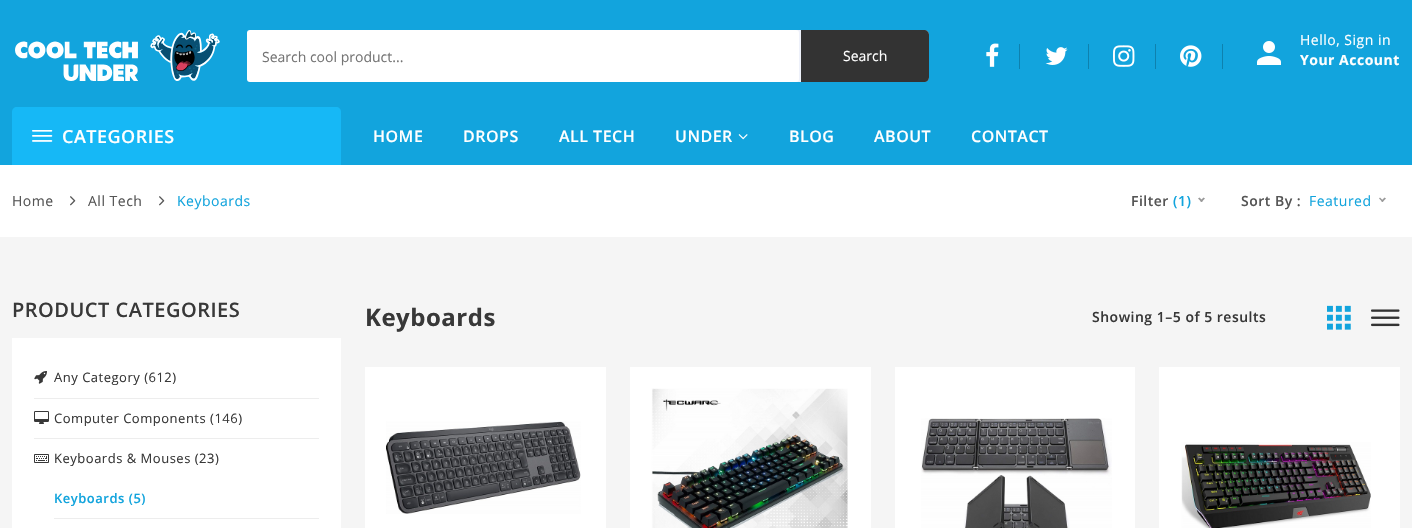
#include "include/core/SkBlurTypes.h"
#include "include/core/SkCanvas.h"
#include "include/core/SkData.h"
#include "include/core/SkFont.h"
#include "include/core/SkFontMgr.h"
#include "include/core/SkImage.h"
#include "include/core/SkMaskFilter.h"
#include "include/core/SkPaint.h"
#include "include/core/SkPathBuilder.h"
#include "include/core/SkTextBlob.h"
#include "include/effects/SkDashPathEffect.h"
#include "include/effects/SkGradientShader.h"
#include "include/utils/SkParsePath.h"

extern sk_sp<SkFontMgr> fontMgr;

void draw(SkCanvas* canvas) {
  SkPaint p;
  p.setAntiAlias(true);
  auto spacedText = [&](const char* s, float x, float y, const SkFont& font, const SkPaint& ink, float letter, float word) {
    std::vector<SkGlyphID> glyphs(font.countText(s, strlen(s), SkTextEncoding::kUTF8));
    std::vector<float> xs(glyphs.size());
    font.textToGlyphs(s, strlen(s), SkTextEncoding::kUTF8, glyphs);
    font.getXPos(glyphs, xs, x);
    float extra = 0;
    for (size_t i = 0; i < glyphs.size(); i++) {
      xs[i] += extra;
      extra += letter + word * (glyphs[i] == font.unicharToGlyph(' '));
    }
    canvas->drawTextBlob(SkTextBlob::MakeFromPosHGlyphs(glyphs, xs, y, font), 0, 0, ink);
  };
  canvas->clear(SkColorSetRGB(245, 245, 245));
  p.setColor(SkColorSetRGB(18, 164, 221));
  canvas->drawRect(SkRect::MakeLTRB(0, 0, 1412, 165), p);
  canvas->drawImageRect(SkImages::DeferredFromEncodedData(SkData::MakeFromFileName("images/1.png")), SkRect::MakeLTRB(15, 30, 220, 81), SkSamplingOptions());
  p.setColor(SkColorSetRGB(238, 241, 250));
  canvas->drawRoundRect(SkRect::MakeLTRB(247, 30, 929, 82), 5, 5, p);
  p.setColor(SK_ColorWHITE);
  canvas->drawRoundRect(SkRect::MakeLTRB(247, 30, 799, 82), 3, 3, p);
  p.setColor(SkColorSetRGB(51, 51, 51));
  canvas->drawPath(SkPathBuilder().moveTo(801, 30).lineTo(924, 30).cubicTo(927, 30, 929, 32, 929, 35).lineTo(929, 77).cubicTo(929, 80, 927, 82, 924, 82).lineTo(801, 82).close().detach(), p);
  p.setColor(SkColorSetRGB(14, 129, 174));
  canvas->drawRect(SkRect::MakeLTRB(1019, 44, 1020, 69), p);
  canvas->drawImageRect(SkImages::DeferredFromEncodedData(SkData::MakeFromFileName("images/2.png")), SkRect::MakeLTRB(986, 43, 999, 67), SkSamplingOptions());
  canvas->drawRect(SkRect::MakeLTRB(1088, 44, 1089, 69), p);
  canvas->drawImageRect(SkImages::DeferredFromEncodedData(SkData::MakeFromFileName("images/3.png")), SkRect::MakeLTRB(1045, 47, 1068, 65), SkSamplingOptions());
  canvas->drawRect(SkRect::MakeLTRB(1155, 44, 1156, 69), p);
  canvas->drawImageRect(SkImages::DeferredFromEncodedData(SkData::MakeFromFileName("images/4.png")), SkRect::MakeLTRB(1113, 45, 1135, 67), SkSamplingOptions());
  canvas->drawRect(SkRect::MakeLTRB(1222, 44, 1223, 69), p);
  canvas->drawImageRect(SkImages::DeferredFromEncodedData(SkData::MakeFromFileName("images/5.png")), SkRect::MakeLTRB(1180, 45, 1202, 67), SkSamplingOptions());
  canvas->drawImageRect(SkImages::DeferredFromEncodedData(SkData::MakeFromFileName("images/6.png")), SkRect::MakeLTRB(1257, 41, 1281, 65), SkSamplingOptions());
  p.setColor(SkColorSetRGB(22, 184, 246));
  canvas->drawPath(SkPathBuilder().moveTo(17, 107).lineTo(336, 107).cubicTo(339, 107, 341, 109, 341, 112).lineTo(341, 165).lineTo(12, 165).lineTo(12, 112).cubicTo(12, 109, 14, 107, 17, 107).close().detach(), p);
  canvas->drawImageRect(SkImages::DeferredFromEncodedData(SkData::MakeFromFileName("images/7.png")), SkRect::MakeLTRB(32, 130, 53, 142), SkSamplingOptions());
  canvas->drawImageRect(SkImages::DeferredFromEncodedData(SkData::MakeFromFileName("images/8.png")), SkRect::MakeLTRB(738, 134, 748, 140), SkSamplingOptions());
  p.setColor(SK_ColorWHITE);
  canvas->drawRect(SkRect::MakeLTRB(0, 165, 1412, 237), p);
  canvas->drawImageRect(SkImages::DeferredFromEncodedData(SkData::MakeFromFileName("images/9.png")), SkRect::MakeLTRB(70, 196, 76, 206), SkSamplingOptions());
  canvas->drawImageRect(SkImages::DeferredFromEncodedData(SkData::MakeFromFileName("images/9.png")), SkRect::MakeLTRB(159, 196, 165, 206), SkSamplingOptions());
  p.setColor(SkColorSetRGB(153, 153, 153));
  canvas->drawPath(SkPathBuilder().moveTo(1203.5f, 197.5f).lineTo(1205, 198.5f).lineTo(1201.5f, 202).lineTo(1200, 201).close().detach(), p);
  canvas->drawPath(SkPathBuilder().moveTo(1199.5f, 197.5f).lineTo(1203, 201).lineTo(1201.5f, 202).lineTo(1198, 198.5f).close().detach(), p);
  canvas->drawPath(SkPathBuilder().moveTo(1384.5f, 197.5f).lineTo(1386, 198.5f).lineTo(1382.5f, 202).lineTo(1381, 201).close().detach(), p);
  canvas->drawPath(SkPathBuilder().moveTo(1380, 197.5f).lineTo(1383.5f, 201).lineTo(1382.5f, 202).lineTo(1379, 198.5f).close().detach(), p);
  p.setColor(SK_ColorWHITE);
  canvas->drawRect(SkRect::MakeLTRB(12, 338, 341, 528), p);
  p.setColor(SkColorSetRGB(237, 237, 237));
  canvas->drawRect(SkRect::MakeLTRB(34, 398, 319, 399), p);
  canvas->drawImageRect(SkImages::DeferredFromEncodedData(SkData::MakeFromFileName("images/10.png")), SkRect::MakeLTRB(34, 371, 47, 384), SkSamplingOptions());
  canvas->drawRect(SkRect::MakeLTRB(34, 438, 319, 439), p);
  canvas->drawImageRect(SkImages::DeferredFromEncodedData(SkData::MakeFromFileName("images/11.png")), SkRect::MakeLTRB(34, 411, 49, 424), SkSamplingOptions());
  canvas->drawImageRect(SkImages::DeferredFromEncodedData(SkData::MakeFromFileName("images/12.png")), SkRect::MakeLTRB(34, 454, 49, 463), SkSamplingOptions());
  canvas->drawRect(SkRect::MakeLTRB(54, 518, 319, 519), p);
  canvas->drawImageRect(SkImages::DeferredFromEncodedData(SkData::MakeFromFileName("images/13.png")), SkRect::MakeLTRB(1327, 305, 1351, 330), SkSamplingOptions());
  canvas->drawImageRect(SkImages::DeferredFromEncodedData(SkData::MakeFromFileName("images/14.png")), SkRect::MakeLTRB(1371, 309, 1400, 327), SkSamplingOptions());
  p.setColor(SK_ColorWHITE);
  canvas->drawRect(SkRect::MakeLTRB(365, 367, 606, 528), p);
  canvas->drawImageRect(SkImages::DeferredFromEncodedData(SkData::MakeFromFileName("images/15.png")), SkRect::MakeLTRB(386, 421, 581, 514), SkSamplingOptions());
  canvas->drawRect(SkRect::MakeLTRB(630, 367, 871, 528), p);
  canvas->drawImageRect(SkImages::DeferredFromEncodedData(SkData::MakeFromFileName("images/16.png")), SkRect::MakeLTRB(651, 388, 848, 528), SkSamplingOptions());
  canvas->drawRect(SkRect::MakeLTRB(895, 367, 1135, 528), p);
  canvas->drawImageRect(SkImages::DeferredFromEncodedData(SkData::MakeFromFileName("images/17.png")), SkRect::MakeLTRB(921, 418, 1112, 528), SkSamplingOptions());
  canvas->drawRect(SkRect::MakeLTRB(1159, 367, 1400, 528), p);
  canvas->drawImageRect(SkImages::DeferredFromEncodedData(SkData::MakeFromFileName("images/18.png")), SkRect::MakeLTRB(1181, 442, 1371, 528), SkSamplingOptions());
  SkFont font1(fontMgr->matchFamilyStyle("Open Sans", SkFontStyle::Normal()), 14);
  font1.setSubpixel(true);
  p.setColor(SkColorSetRGB(117, 117, 117));
  canvas->drawString("Search cool product...", 262, 62, font1, p);
  p.setColor(SK_ColorWHITE);
  canvas->drawString("Search", 843, 61, font1, p);
  spacedText("Hello, Sign in", 1300, 45, font1, p, 0.5f, 0);
  SkFont font2(fontMgr->matchFamilyStyle("Open Sans", SkFontStyle::Bold()), 14);
  font2.setSubpixel(true);
  spacedText("Your Account", 1300, 65, font2, p, 0.5f, 0);
  SkFont font3(fontMgr->matchFamilyStyle("Open Sans", SkFontStyle(600, SkFontStyle::kNormal_Width, SkFontStyle::kUpright_Slant)), 18);
  font3.setSubpixel(true);
  spacedText("CATEGORIES", 62, 143, font3, p, 0.5f, 0);
  SkFont font4(fontMgr->matchFamilyStyle("Open Sans", SkFontStyle(600, SkFontStyle::kNormal_Width, SkFontStyle::kUpright_Slant)), 16);
  font4.setSubpixel(true);
  spacedText("HOME", 373, 142, font4, p, 0.5f, 0);
  spacedText("DROPS", 463, 142, font4, p, 0.5f, 0);
  spacedText("ALL TECH", 559, 142, font4, p, 0.5f, 0);
  spacedText("UNDER", 675, 142, font4, p, 0.5f, 0);
  spacedText("BLOG", 789, 142, font4, p, 0.5f, 0);
  spacedText("ABOUT", 874, 142, font4, p, 0.5f, 0);
  spacedText("CONTACT", 971, 142, font4, p, 0.5f, 0);
  p.setColor(SkColorSetRGB(85, 85, 85));
  spacedText("Home", 12, 206, font1, p, 0.5f, 0);
  spacedText("All Tech", 88, 206, font1, p, 0.5f, 0);
  p.setColor(SkColorSetRGB(18, 164, 221));
  spacedText("Keyboards", 177, 206, font1, p, 0.5f, 0);
  SkFont font5(fontMgr->matchFamilyStyle("Open Sans", SkFontStyle(600, SkFontStyle::kNormal_Width, SkFontStyle::kUpright_Slant)), 14);
  font5.setSubpixel(true);
  p.setColor(SkColorSetRGB(85, 85, 85));
  spacedText("Filter", 1131, 206, font5, p, 0.5f, 0);
  p.setColor(SkColorSetRGB(18, 164, 221));
  spacedText("(1)", 1173, 206, font5, p, 0.5f, 0);
  p.setColor(SkColorSetRGB(85, 85, 85));
  spacedText("Sort By :", 1241, 206, font5, p, 0.5f, 0);
  p.setColor(SkColorSetRGB(18, 164, 221));
  spacedText("Featured", 1309, 206, font1, p, 0.5f, 0);
  SkFont font6(fontMgr->matchFamilyStyle("Open Sans", SkFontStyle(600, SkFontStyle::kNormal_Width, SkFontStyle::kUpright_Slant)), 20);
  font6.setSubpixel(true);
  p.setColor(SkColorSetRGB(56, 56, 56));
  spacedText("PRODUCT CATEGORIES", 12, 317, font6, p, 0.5f, 0);
  SkFont font7(fontMgr->matchFamilyStyle("Open Sans", SkFontStyle::Normal()), 13);
  font7.setSubpixel(true);
  spacedText("Any Category (612)", 54, 382, font7, p, 0.5f, 0);
  spacedText("Computer Components (146)", 54, 423, font7, p, 0.5f, 0);
  spacedText("Keyboards & Mouses (23)", 54, 463, font7, p, 0.5f, 0);
  SkFont font8(fontMgr->matchFamilyStyle("Open Sans", SkFontStyle(600, SkFontStyle::kNormal_Width, SkFontStyle::kUpright_Slant)), 13);
  font8.setSubpixel(true);
  p.setColor(SkColorSetRGB(18, 164, 221));
  spacedText("Keyboards (5)", 54, 503, font8, p, 0.5f, 0);
  SkFont font9(fontMgr->matchFamilyStyle("Open Sans", SkFontStyle::Bold()), 24);
  font9.setSubpixel(true);
  p.setColor(SkColorSetRGB(56, 56, 56));
  spacedText("Keyboards", 365, 326, font9, p, 0.5f, 0);
  spacedText("Showing 1–5 of 5 results", 1092, 322, font5, p, 0.5f, 0);
}
